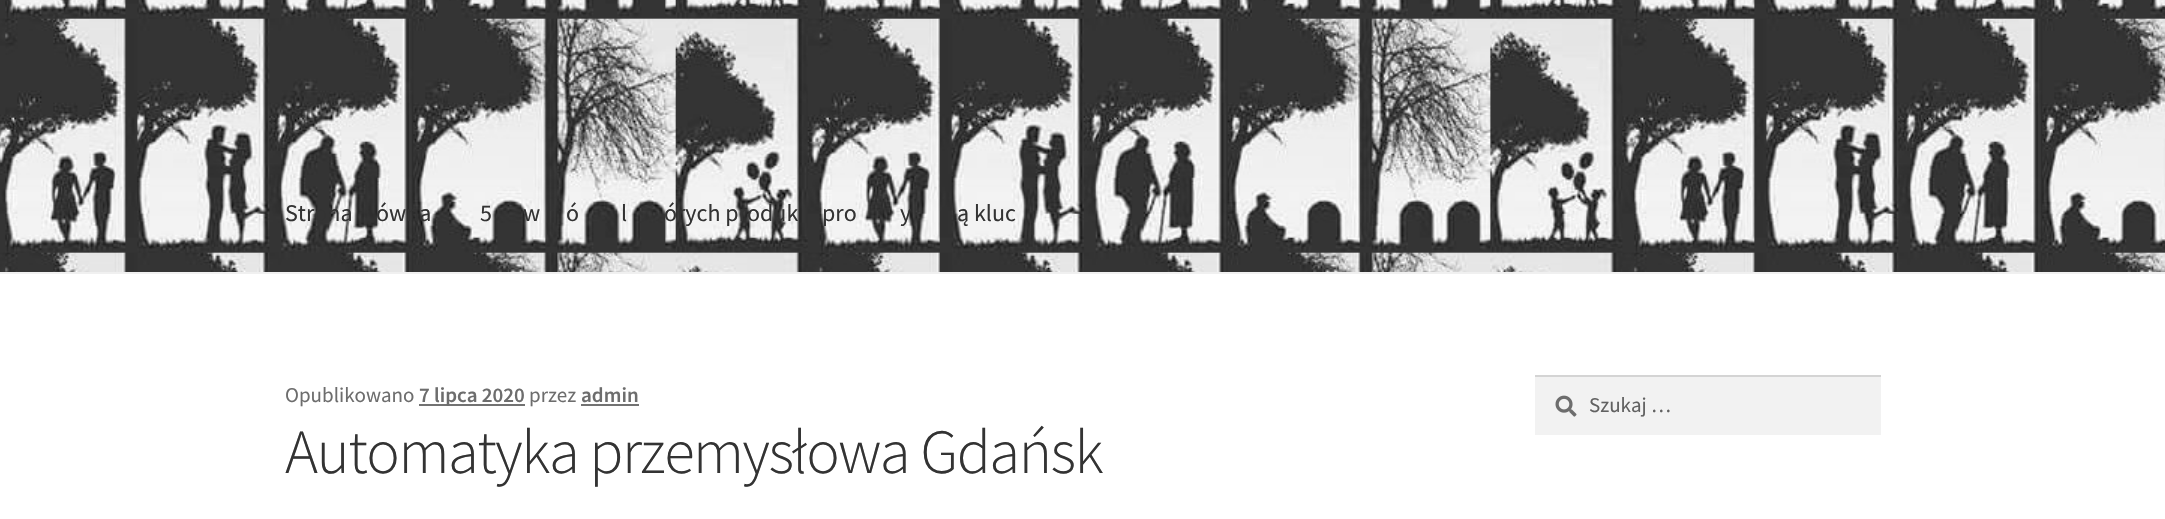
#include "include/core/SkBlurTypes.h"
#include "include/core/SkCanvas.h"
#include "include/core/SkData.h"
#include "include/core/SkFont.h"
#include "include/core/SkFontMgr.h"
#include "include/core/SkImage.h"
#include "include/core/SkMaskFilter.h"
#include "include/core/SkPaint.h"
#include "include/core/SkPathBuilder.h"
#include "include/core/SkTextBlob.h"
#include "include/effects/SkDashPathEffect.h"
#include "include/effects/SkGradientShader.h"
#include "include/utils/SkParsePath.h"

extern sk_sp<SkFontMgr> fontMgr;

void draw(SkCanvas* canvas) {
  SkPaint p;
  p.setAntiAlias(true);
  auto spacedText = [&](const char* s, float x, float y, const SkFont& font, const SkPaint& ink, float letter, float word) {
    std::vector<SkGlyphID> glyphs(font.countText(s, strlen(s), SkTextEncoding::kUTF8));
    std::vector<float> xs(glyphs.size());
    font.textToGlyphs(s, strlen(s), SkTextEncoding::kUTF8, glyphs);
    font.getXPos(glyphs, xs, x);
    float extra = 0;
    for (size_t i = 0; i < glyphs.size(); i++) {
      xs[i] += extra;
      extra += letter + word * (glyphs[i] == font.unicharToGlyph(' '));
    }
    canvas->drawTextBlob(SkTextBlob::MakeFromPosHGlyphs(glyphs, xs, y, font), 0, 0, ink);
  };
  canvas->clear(SK_ColorWHITE);
  canvas->drawImageRect(SkImages::DeferredFromEncodedData(SkData::MakeFromFileName("images/1.png")), SkRect::MakeLTRB(0, 0, 2165, 272), SkSamplingOptions());
  p.setColor(SkColorSetRGB(240, 240, 240));
  canvas->drawRect(SkRect::MakeLTRB(0, 272, 2165, 274), p);
  p.setColor(SkColorSetRGB(114, 114, 114));
  canvas->drawRect(SkRect::MakeLTRB(419, 404, 525, 406), p);
  canvas->drawRect(SkRect::MakeLTRB(581, 404, 639, 406), p);
  p.setColor(SkColorSetRGB(242, 242, 242));
  canvas->drawRect(SkRect::MakeLTRB(1535, 377, 1881, 435), p);
  canvas->drawImageRect(SkImages::DeferredFromEncodedData(SkData::MakeFromFileName("images/2.png")), SkRect::MakeLTRB(1555, 395, 1577, 417), SkSamplingOptions());
  p.setColor(SkColorSetRGB(212, 212, 212));
  canvas->drawRect(SkRect::MakeLTRB(1535, 375, 1881, 377), p);
  SkFont font1(fontMgr->matchFamilyStyle("Source Sans Pro", SkFontStyle::Normal()), 24);
  font1.setSubpixel(true);
  p.setColor(SkColorSetRGB(51, 51, 51));
  canvas->drawString("Strona", 285, 221, font1, p);
  canvas->drawString("ówna", 376, 221, font1, p);
  canvas->drawString("5", 480, 221, font1, p);
  canvas->drawString("w", 523, 221, font1, p);
  canvas->drawString("ó", 566, 221, font1, p);
  canvas->drawString("l", 621, 221, font1, p);
  canvas->drawString("órych produk", 664, 221, font1, p);
  canvas->drawString("pro", 822, 221, font1, p);
  canvas->drawString("y", 900, 221, font1, p);
  canvas->drawString("ą kluc", 957, 221, font1, p);
  SkFont font2(fontMgr->matchFamilyStyle("Source Sans Pro", SkFontStyle::Normal()), 21);
  font2.setSubpixel(true);
  p.setColor(SkColorSetRGB(109, 109, 109));
  canvas->drawString("Opublikowano", 285, 402, font2, p);
  SkFont font3(fontMgr->matchFamilyStyle("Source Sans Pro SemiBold", SkFontStyle(600, SkFontStyle::kNormal_Width, SkFontStyle::kUpright_Slant)), 21);
  font3.setSubpixel(true);
  canvas->drawString("7 lipca 2020", 419, 402, font3, p);
  canvas->drawString("przez", 529, 402, font2, p);
  canvas->drawString("admin", 581, 402, font3, p);
  SkFont font4(fontMgr->matchFamilyStyle("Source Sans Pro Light", SkFontStyle(300, SkFontStyle::kNormal_Width, SkFontStyle::kUpright_Slant)), 62.8f);
  font4.setSubpixel(true);
  p.setColor(SkColorSetRGB(51, 51, 51));
  spacedText("Automatyka przemysłowa Gdańsk", 285, 473, font4, p, -1.5f, 0);
  p.setColor(SkColorSetRGB(97, 97, 97));
  canvas->drawString("Szukaj …", 1589, 412, font2, p);
}
